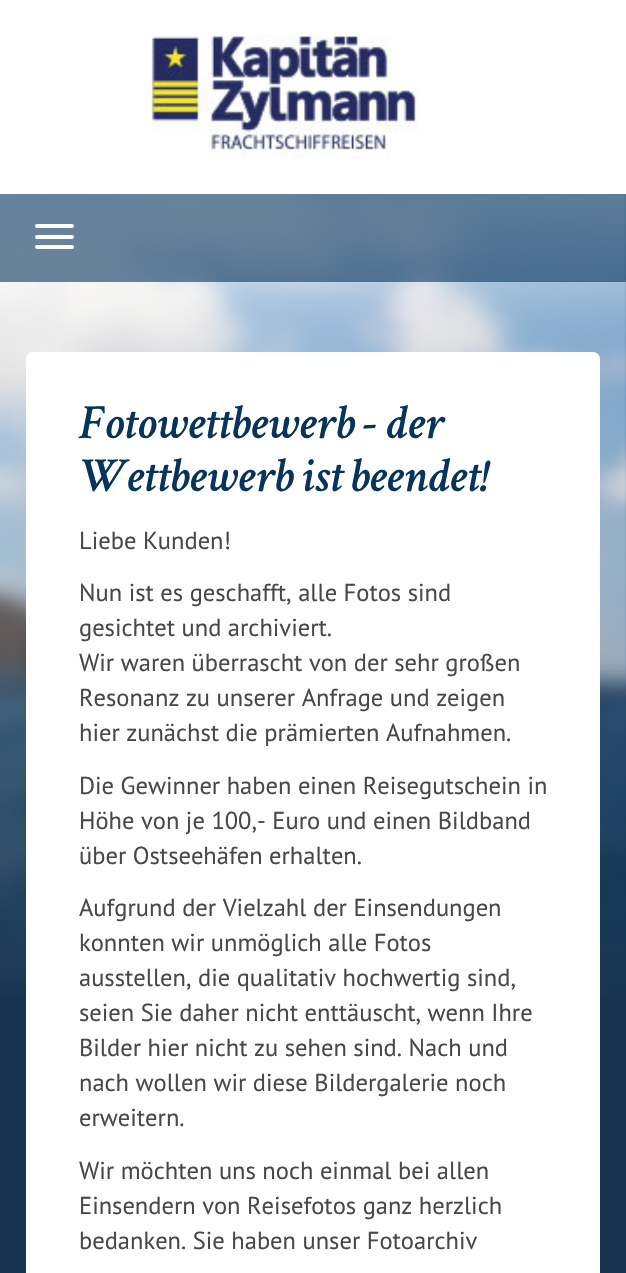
#include "include/core/SkBlurTypes.h"
#include "include/core/SkCanvas.h"
#include "include/core/SkData.h"
#include "include/core/SkFont.h"
#include "include/core/SkFontMgr.h"
#include "include/core/SkImage.h"
#include "include/core/SkMaskFilter.h"
#include "include/core/SkPaint.h"
#include "include/core/SkPathBuilder.h"
#include "include/core/SkTextBlob.h"
#include "include/effects/SkDashPathEffect.h"
#include "include/effects/SkGradientShader.h"
#include "include/utils/SkParsePath.h"

extern sk_sp<SkFontMgr> fontMgr;

void draw(SkCanvas* canvas) {
  SkPaint p;
  p.setAntiAlias(true);
  canvas->clear(SkColorSetRGB(22, 52, 80));
  canvas->drawImageRect(SkImages::DeferredFromEncodedData(SkData::MakeFromFileName("images/1.png")), SkRect::MakeLTRB(0, 194, 626, 997), SkSamplingOptions());
  p.setColor(SK_ColorWHITE);
  canvas->drawRect(SkRect::MakeLTRB(0, 0, 626, 194), p);
  canvas->drawImageRect(SkImages::DeferredFromEncodedData(SkData::MakeFromFileName("images/2.png")), SkRect::MakeLTRB(151, 35, 419, 158), SkSamplingOptions());
  p.setColor(SkColorSetARGB(153, 6, 52, 93));
  canvas->drawRect(SkRect::MakeLTRB(0, 194, 626, 282), p);
  p.setColor(SK_ColorWHITE);
  canvas->drawRoundRect(SkRect::MakeLTRB(35, 224, 74, 228), 2, 2, p);
  canvas->drawRoundRect(SkRect::MakeLTRB(35, 235, 74, 239), 2, 2, p);
  canvas->drawRoundRect(SkRect::MakeLTRB(35, 245, 74, 249), 2, 2, p);
  canvas->drawRoundRect(SkRect::MakeLTRB(26, 352, 600, 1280), 7, 7, p);
  SkFont font1(fontMgr->matchFamilyStyle("Crimson Text", SkFontStyle(600, SkFontStyle::kNormal_Width, SkFontStyle::kItalic_Slant)), 49);
  font1.setSubpixel(true);
  p.setColor(SkColorSetRGB(6, 52, 93));
  canvas->drawString("Fotowettbewerb - der", 79, 438, font1, p);
  canvas->drawString("Wettbewerb ist beendet!", 79, 491, font1, p);
  SkFont font2(fontMgr->matchFamilyStyle("PT Sans", SkFontStyle::Normal()), 24.5f);
  font2.setSubpixel(true);
  p.setColor(SkColorSetRGB(72, 72, 72));
  canvas->drawString("Liebe Kunden!", 79, 549, font2, p);
  canvas->drawString("Nun ist es geschafft, alle Fotos sind", 79, 601, font2, p);
  canvas->drawString("gesichtet und archiviert.", 79, 636, font2, p);
  canvas->drawString("Wir waren überrascht von der sehr großen", 79, 671, font2, p);
  canvas->drawString("Resonanz zu unserer Anfrage und zeigen", 79, 706, font2, p);
  canvas->drawString("hier zunächst die prämierten Aufnahmen.", 79, 741, font2, p);
  canvas->drawString("Die Gewinner haben einen Reisegutschein in", 79, 794, font2, p);
  canvas->drawString("Höhe von je 100,- Euro und einen Bildband", 79, 829, font2, p);
  canvas->drawString("über Ostseehäfen erhalten.", 79, 864, font2, p);
  canvas->drawString("Aufgrund der Vielzahl der Einsendungen", 79, 916, font2, p);
  canvas->drawString("konnten wir unmöglich alle Fotos", 79, 951, font2, p);
  canvas->drawString("ausstellen, die qualitativ hochwertig sind,", 79, 986, font2, p);
  canvas->drawString("seien Sie daher nicht enttäuscht, wenn Ihre", 79, 1021, font2, p);
  canvas->drawString("Bilder hier nicht zu sehen sind. Nach und", 79, 1056, font2, p);
  canvas->drawString("nach wollen wir diese Bildergalerie noch", 79, 1091, font2, p);
  canvas->drawString("erweitern.", 79, 1126, font2, p);
  canvas->drawString("Wir möchten uns noch einmal bei allen", 79, 1179, font2, p);
  canvas->drawString("Einsendern von Reisefotos ganz herzlich", 79, 1214, font2, p);
  canvas->drawString("bedanken. Sie haben unser Fotoarchiv", 79, 1249, font2, p);
}
